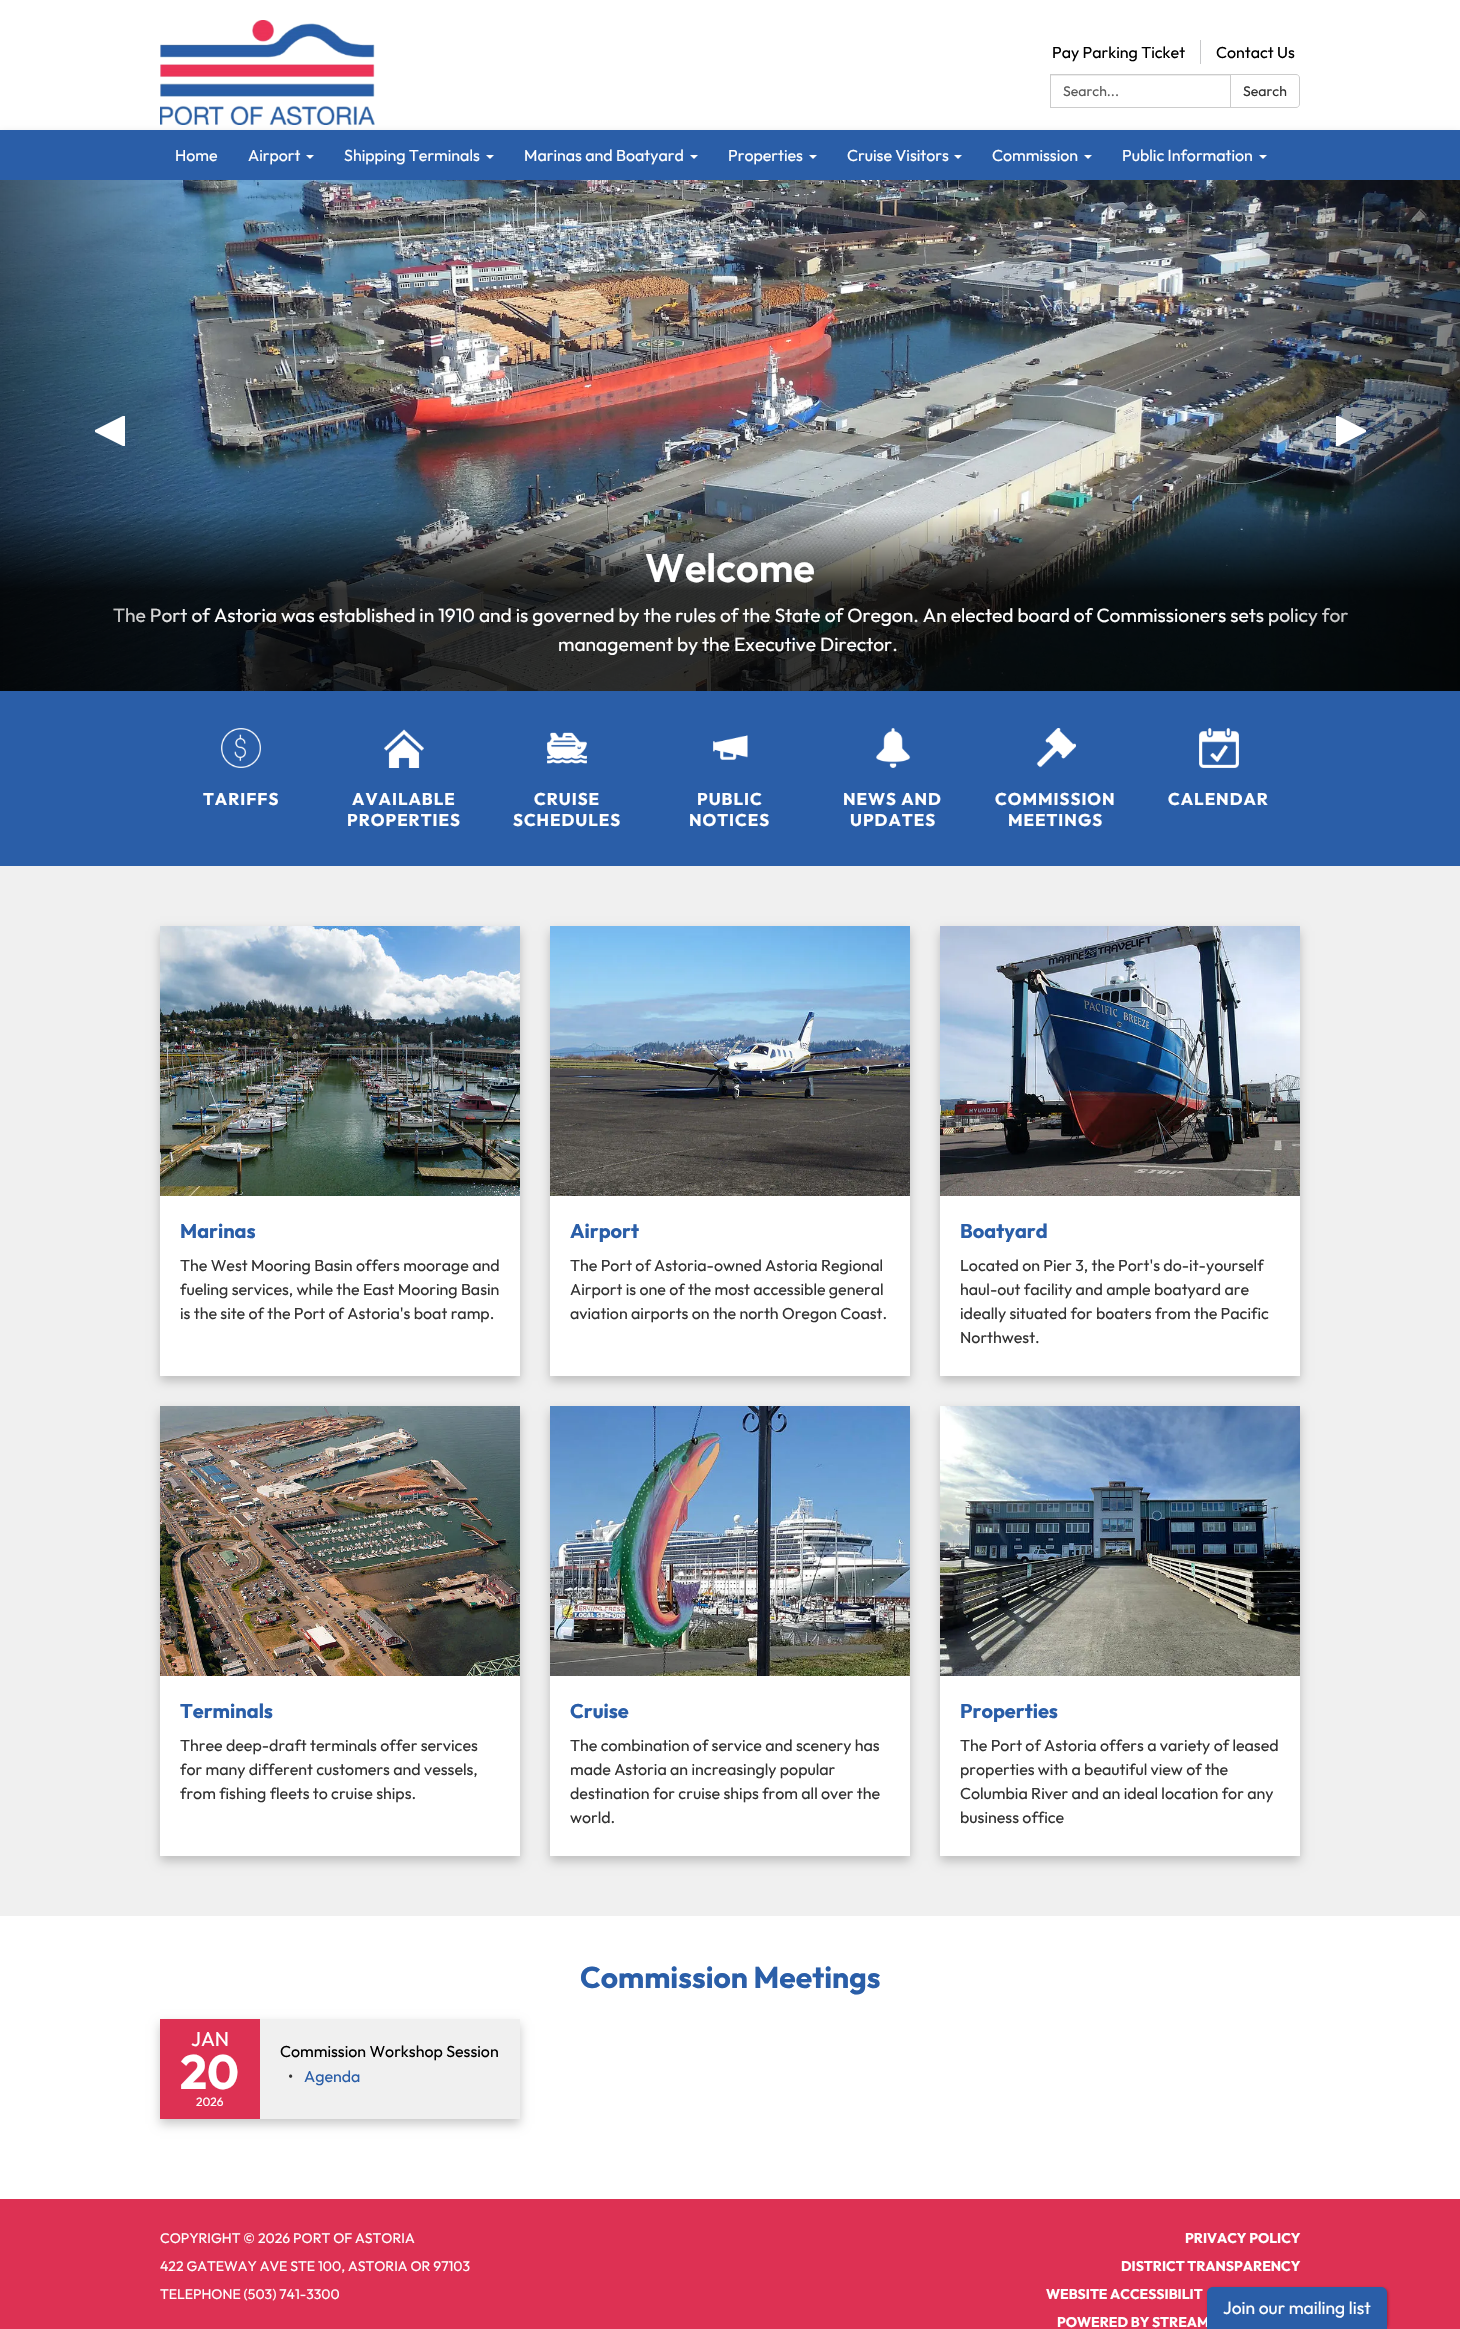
#include "include/core/SkBlurTypes.h"
#include "include/core/SkCanvas.h"
#include "include/core/SkData.h"
#include "include/core/SkFont.h"
#include "include/core/SkFontMgr.h"
#include "include/core/SkImage.h"
#include "include/core/SkMaskFilter.h"
#include "include/core/SkPaint.h"
#include "include/core/SkPathBuilder.h"
#include "include/core/SkTextBlob.h"
#include "include/effects/SkDashPathEffect.h"
#include "include/effects/SkGradientShader.h"
#include "include/utils/SkParsePath.h"

extern sk_sp<SkFontMgr> fontMgr;

void draw(SkCanvas* canvas) {
  SkPaint p;
  p.setAntiAlias(true);
  auto spacedText = [&](const char* s, float x, float y, const SkFont& font, const SkPaint& ink, float letter, float word) {
    std::vector<SkGlyphID> glyphs(font.countText(s, strlen(s), SkTextEncoding::kUTF8));
    std::vector<float> xs(glyphs.size());
    font.textToGlyphs(s, strlen(s), SkTextEncoding::kUTF8, glyphs);
    font.getXPos(glyphs, xs, x);
    float extra = 0;
    for (size_t i = 0; i < glyphs.size(); i++) {
      xs[i] += extra;
      extra += letter + word * (glyphs[i] == font.unicharToGlyph(' '));
    }
    canvas->drawTextBlob(SkTextBlob::MakeFromPosHGlyphs(glyphs, xs, y, font), 0, 0, ink);
  };
  canvas->clear(SkColorSetRGB(221, 49, 83));
  p.setColor(SK_ColorWHITE);
  canvas->drawRect(SkRect::MakeLTRB(0, 0, 1460, 130), p);
  canvas->drawImageRect(SkImages::DeferredFromEncodedData(SkData::MakeFromFileName("images/1.png")), SkRect::MakeLTRB(160, 20, 375, 125), SkSamplingOptions());
  p.setColor(SkColorSetRGB(200, 201, 203));
  canvas->drawRect(SkRect::MakeLTRB(1200, 40, 1201, 64), p);
  p.setColor(SkColorSetRGB(236, 236, 236));
  canvas->drawRect(SkRect::MakeLTRB(1051, 75, 1230, 76), p);
  p.setStyle(SkPaint::kStroke_Style);
  p.setStrokeWidth(1);
  p.setColor(SkColorSetRGB(204, 204, 204));
  canvas->drawRect(SkRect::MakeLTRB(1050.5f, 74.5f, 1230.5f, 107.5f), p);
  p.setStyle(SkPaint::kFill_Style);
  p.setColor(SK_ColorWHITE);
  canvas->drawPath(SkPathBuilder().moveTo(1230.5f, 74.5f).lineTo(1296, 74.5f).cubicTo(1298, 74.5f, 1299.5f, 76, 1299.5f, 78).lineTo(1299.5f, 104).cubicTo(1299.5f, 106, 1298, 107.5f, 1296, 107.5f).lineTo(1230.5f, 107.5f).close().detach(), p);
  p.setStyle(SkPaint::kStroke_Style);
  p.setColor(SkColorSetRGB(204, 204, 204));
  canvas->drawPath(SkPathBuilder().moveTo(1230.5f, 74.5f).lineTo(1296, 74.5f).cubicTo(1298, 74.5f, 1299.5f, 76, 1299.5f, 78).lineTo(1299.5f, 104).cubicTo(1299.5f, 106, 1298, 107.5f, 1296, 107.5f).lineTo(1230.5f, 107.5f).close().detach(), p);
  p.setStyle(SkPaint::kFill_Style);
  p.setColor(SkColorSetARGB(54, 0, 0, 0));
  p.setMaskFilter(SkMaskFilter::MakeBlur(kNormal_SkBlurStyle, 5));
  canvas->drawRect(SkRect::MakeLTRB(0, 135, 1460, 185), p);
  p.setMaskFilter(nullptr);
  p.setColor(SkColorSetRGB(42, 94, 168));
  canvas->drawRect(SkRect::MakeLTRB(0, 130, 1460, 180), p);
  p.setColor(SK_ColorWHITE);
  canvas->drawPath(SkPathBuilder().moveTo(306, 155).lineTo(314, 155).lineTo(310, 159).close().detach(), p);
  canvas->drawPath(SkPathBuilder().moveTo(486, 155).lineTo(494, 155).lineTo(490, 159).close().detach(), p);
  canvas->drawPath(SkPathBuilder().moveTo(690, 155).lineTo(698, 155).lineTo(694, 159).close().detach(), p);
  canvas->drawPath(SkPathBuilder().moveTo(809, 155).lineTo(817, 155).lineTo(813, 159).close().detach(), p);
  canvas->drawPath(SkPathBuilder().moveTo(954, 155).lineTo(962, 155).lineTo(958, 159).close().detach(), p);
  canvas->drawPath(SkPathBuilder().moveTo(1084, 155).lineTo(1092, 155).lineTo(1088, 159).close().detach(), p);
  canvas->drawPath(SkPathBuilder().moveTo(1259, 155).lineTo(1267, 155).lineTo(1263, 159).close().detach(), p);
  canvas->drawRect(SkRect::MakeLTRB(0, 1916, 1460, 2199), p);
  canvas->drawImageRect(SkImages::DeferredFromEncodedData(SkData::MakeFromFileName("images/2.png")), SkRect::MakeLTRB(0, 180, 1460, 691), SkSamplingOptions());
  p.setColor(SkColorSetRGB(42, 94, 168));
  canvas->drawRect(SkRect::MakeLTRB(0, 691, 1460, 866), p);
  canvas->drawImageRect(SkImages::DeferredFromEncodedData(SkData::MakeFromFileName("images/3.png")), SkRect::MakeLTRB(221, 728, 261, 768), SkSamplingOptions());
  canvas->drawImageRect(SkImages::DeferredFromEncodedData(SkData::MakeFromFileName("images/4.png")), SkRect::MakeLTRB(384, 729, 424, 768), SkSamplingOptions());
  canvas->drawImageRect(SkImages::DeferredFromEncodedData(SkData::MakeFromFileName("images/5.png")), SkRect::MakeLTRB(547, 732, 587, 764), SkSamplingOptions());
  canvas->drawImageRect(SkImages::DeferredFromEncodedData(SkData::MakeFromFileName("images/6.png")), SkRect::MakeLTRB(713, 735, 748, 760), SkSamplingOptions());
  canvas->drawImageRect(SkImages::DeferredFromEncodedData(SkData::MakeFromFileName("images/7.png")), SkRect::MakeLTRB(876, 728, 911, 768), SkSamplingOptions());
  canvas->drawImageRect(SkImages::DeferredFromEncodedData(SkData::MakeFromFileName("images/8.png")), SkRect::MakeLTRB(1036, 728, 1076, 768), SkSamplingOptions());
  canvas->drawImageRect(SkImages::DeferredFromEncodedData(SkData::MakeFromFileName("images/9.png")), SkRect::MakeLTRB(1199, 728, 1239, 768), SkSamplingOptions());
  p.setColor(SkColorSetRGB(240, 240, 240));
  canvas->drawRect(SkRect::MakeLTRB(0, 866, 1460, 1916), p);
  p.setColor(SkColorSetARGB(54, 0, 0, 0));
  p.setMaskFilter(SkMaskFilter::MakeBlur(kNormal_SkBlurStyle, 5));
  canvas->drawRect(SkRect::MakeLTRB(160, 931, 520, 1381), p);
  p.setMaskFilter(nullptr);
  p.setColor(SK_ColorWHITE);
  canvas->drawRect(SkRect::MakeLTRB(160, 1196, 520, 1376), p);
  canvas->drawImageRect(SkImages::DeferredFromEncodedData(SkData::MakeFromFileName("images/10.png")), SkRect::MakeLTRB(160, 926, 520, 1196), SkSamplingOptions());
  p.setColor(SkColorSetARGB(54, 0, 0, 0));
  p.setMaskFilter(SkMaskFilter::MakeBlur(kNormal_SkBlurStyle, 5));
  canvas->drawRect(SkRect::MakeLTRB(550, 931, 910, 1381), p);
  p.setMaskFilter(nullptr);
  p.setColor(SK_ColorWHITE);
  canvas->drawRect(SkRect::MakeLTRB(550, 1196, 910, 1376), p);
  canvas->drawImageRect(SkImages::DeferredFromEncodedData(SkData::MakeFromFileName("images/11.png")), SkRect::MakeLTRB(550, 926, 910, 1196), SkSamplingOptions());
  p.setColor(SkColorSetARGB(54, 0, 0, 0));
  p.setMaskFilter(SkMaskFilter::MakeBlur(kNormal_SkBlurStyle, 5));
  canvas->drawRect(SkRect::MakeLTRB(940, 931, 1300, 1381), p);
  p.setMaskFilter(nullptr);
  p.setColor(SK_ColorWHITE);
  canvas->drawRect(SkRect::MakeLTRB(940, 1196, 1300, 1376), p);
  canvas->drawImageRect(SkImages::DeferredFromEncodedData(SkData::MakeFromFileName("images/12.png")), SkRect::MakeLTRB(940, 926, 1300, 1196), SkSamplingOptions());
  p.setColor(SkColorSetARGB(54, 0, 0, 0));
  p.setMaskFilter(SkMaskFilter::MakeBlur(kNormal_SkBlurStyle, 5));
  canvas->drawRect(SkRect::MakeLTRB(160, 1411, 520, 1861), p);
  p.setMaskFilter(nullptr);
  p.setColor(SK_ColorWHITE);
  canvas->drawRect(SkRect::MakeLTRB(160, 1676, 520, 1856), p);
  canvas->drawImageRect(SkImages::DeferredFromEncodedData(SkData::MakeFromFileName("images/13.png")), SkRect::MakeLTRB(160, 1406, 520, 1676), SkSamplingOptions());
  p.setColor(SkColorSetARGB(54, 0, 0, 0));
  p.setMaskFilter(SkMaskFilter::MakeBlur(kNormal_SkBlurStyle, 5));
  canvas->drawRect(SkRect::MakeLTRB(550, 1411, 910, 1861), p);
  p.setMaskFilter(nullptr);
  p.setColor(SK_ColorWHITE);
  canvas->drawRect(SkRect::MakeLTRB(550, 1676, 910, 1856), p);
  canvas->drawImageRect(SkImages::DeferredFromEncodedData(SkData::MakeFromFileName("images/14.png")), SkRect::MakeLTRB(550, 1406, 910, 1676), SkSamplingOptions());
  p.setColor(SkColorSetARGB(54, 0, 0, 0));
  p.setMaskFilter(SkMaskFilter::MakeBlur(kNormal_SkBlurStyle, 5));
  canvas->drawRect(SkRect::MakeLTRB(940, 1411, 1300, 1861), p);
  p.setMaskFilter(nullptr);
  p.setColor(SK_ColorWHITE);
  canvas->drawRect(SkRect::MakeLTRB(940, 1676, 1300, 1856), p);
  canvas->drawImageRect(SkImages::DeferredFromEncodedData(SkData::MakeFromFileName("images/15.png")), SkRect::MakeLTRB(940, 1406, 1300, 1676), SkSamplingOptions());
  p.setColor(SkColorSetARGB(54, 0, 0, 0));
  p.setMaskFilter(SkMaskFilter::MakeBlur(kNormal_SkBlurStyle, 5));
  canvas->drawRect(SkRect::MakeLTRB(160, 2024, 520, 2124), p);
  p.setMaskFilter(nullptr);
  p.setColor(SkColorSetRGB(240, 240, 240));
  canvas->drawRect(SkRect::MakeLTRB(260, 2019, 520, 2119), p);
  p.setColor(SkColorSetRGB(221, 49, 83));
  canvas->drawRect(SkRect::MakeLTRB(160, 2019, 260, 2119), p);
  p.setColor(SkColorSetARGB(77, 0, 0, 0));
  p.setMaskFilter(SkMaskFilter::MakeBlur(kNormal_SkBlurStyle, 1.5f));
  canvas->drawRoundRect(SkRect::MakeLTRB(1208, 2288, 1388, 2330), 6, 6, p);
  p.setMaskFilter(nullptr);
  SkFont font1(fontMgr->matchFamilyStyle("Outfit", SkFontStyle::Normal()), 16);
  font1.setSubpixel(true);
  p.setColor(SK_ColorBLACK);
  canvas->drawString("Pay Parking Ticket", 1052, 58, font1, p);
  canvas->drawString("Contact Us", 1216, 58, font1, p);
  SkFont font2(fontMgr->matchFamilyStyle("Outfit", SkFontStyle::Normal()), 14);
  font2.setSubpixel(true);
  p.setColor(SkColorSetRGB(91, 91, 91));
  canvas->drawString("Search...", 1063, 96, font2, p);
  p.setColor(SkColorSetRGB(51, 51, 51));
  canvas->drawString("Search", 1243, 96, font2, p);
  p.setColor(SK_ColorWHITE);
  canvas->drawString("Home", 175, 161, font1, p);
  canvas->drawString("Airport", 248, 161, font1, p);
  canvas->drawString("Shipping Terminals", 344, 161, font1, p);
  canvas->drawString("Marinas and Boatyard", 524, 161, font1, p);
  canvas->drawString("Properties", 728, 161, font1, p);
  canvas->drawString("Cruise Visitors", 847, 161, font1, p);
  canvas->drawString("Commission", 992, 161, font1, p);
  canvas->drawString("Public Information", 1122, 161, font1, p);
  SkFont font3(fontMgr->matchFamilyStyle("Outfit", SkFontStyle(600, SkFontStyle::kNormal_Width, SkFontStyle::kUpright_Slant)), 40);
  font3.setSubpixel(true);
  canvas->drawString("Welcome", 645, 582, font3, p);
  SkFont font4(fontMgr->matchFamilyStyle("Outfit", SkFontStyle::Normal()), 19.2f);
  font4.setSubpixel(true);
  canvas->drawString("The Port of Astoria was established in 1910 and is governed by the rules of the State of Oregon. An elected board of Commissioners sets policy for", 113, 622, font4, p);
  {
    const SkColor colors[] = {SkColorSetARGB(128, 0, 0, 0), SkColorSetARGB(0, 0, 0, 0)};
    const float stops[] = {0, 1};
    const SkPoint ends[] = {{0, 436}, {219, 436}};
    p.setShader(SkGradientShader::MakeLinear(ends, colors, stops, 2, SkTileMode::kClamp));
    p.setAlpha(255);
  }
  canvas->drawRect(SkRect::MakeLTRB(0, 180, 210, 691), p);
  p.setShader(nullptr);
  p.setColor(SK_ColorWHITE);
  canvas->drawPath(SkPathBuilder().moveTo(125, 416).lineTo(125, 446).lineTo(95, 431).close().detach(), p);
  canvas->save();
  canvas->clipRect(SkRect::MakeLTRB(95, 416, 125, 446));
  p.setStyle(SkPaint::kStroke_Style);
  p.setStrokeWidth(2);
  canvas->drawPath(SkPathBuilder().moveTo(125, 416).lineTo(125, 446).lineTo(95, 431).close().detach(), p);
  canvas->restore();
  p.setStyle(SkPaint::kFill_Style);
  canvas->drawString("management by the Executive Director.", 558, 651, font4, p);
  {
    const SkColor colors[] = {SkColorSetARGB(0, 0, 0, 0), SkColorSetARGB(128, 0, 0, 0)};
    const float stops[] = {0, 1};
    const SkPoint ends[] = {{1241, 436}, {1460, 436}};
    p.setShader(SkGradientShader::MakeLinear(ends, colors, stops, 2, SkTileMode::kClamp));
    p.setAlpha(255);
  }
  canvas->drawRect(SkRect::MakeLTRB(1250, 180, 1460, 691), p);
  p.setShader(nullptr);
  p.setColor(SK_ColorWHITE);
  canvas->drawPath(SkPathBuilder().moveTo(1336, 416).lineTo(1366, 431).lineTo(1336, 446).close().detach(), p);
  canvas->save();
  canvas->clipRect(SkRect::MakeLTRB(1336, 416, 1366, 446));
  p.setStyle(SkPaint::kStroke_Style);
  canvas->drawPath(SkPathBuilder().moveTo(1336, 416).lineTo(1366, 431).lineTo(1336, 446).close().detach(), p);
  canvas->restore();
  SkFont font5(fontMgr->matchFamilyStyle("Outfit", SkFontStyle::Bold()), 17);
  font5.setSubpixel(true);
  p.setStyle(SkPaint::kFill_Style);
  spacedText("TARIFFS", 203, 805, font5, p, 1, 0);
  spacedText("AVAILABLE", 352, 805, font5, p, 1, 0);
  spacedText("PROPERTIES", 347, 826, font5, p, 1, 0);
  spacedText("CRUISE", 534, 805, font5, p, 1, 0);
  spacedText("SCHEDULES", 513, 826, font5, p, 1, 0);
  spacedText("PUBLIC", 697, 805, font5, p, 1, 0);
  spacedText("NOTICES", 689, 826, font5, p, 1, 0);
  spacedText("NEWS AND", 843, 805, font5, p, 1, 0);
  spacedText("UPDATES", 850, 826, font5, p, 1, 0);
  spacedText("COMMISSION", 995, 805, font5, p, 1, 0);
  spacedText("MEETINGS", 1008, 826, font5, p, 1, 0);
  spacedText("CALENDAR", 1168, 805, font5, p, 1, 0);
  SkFont font6(fontMgr->matchFamilyStyle("Outfit", SkFontStyle::Bold()), 20);
  font6.setSubpixel(true);
  p.setColor(SkColorSetRGB(42, 94, 168));
  canvas->drawString("Marinas", 180, 1238, font6, p);
  p.setColor(SkColorSetRGB(51, 51, 51));
  canvas->drawString("The West Mooring Basin offers moorage and", 180, 1271, font1, p);
  canvas->drawString("fueling services, while the East Mooring Basin", 180, 1295, font1, p);
  canvas->drawString("is the site of the Port of Astoria's boat ramp.", 180, 1319, font1, p);
  p.setColor(SkColorSetRGB(42, 94, 168));
  canvas->drawString("Airport", 570, 1238, font6, p);
  p.setColor(SkColorSetRGB(51, 51, 51));
  canvas->drawString("The Port of Astoria-owned Astoria Regional", 570, 1271, font1, p);
  canvas->drawString("Airport is one of the most accessible general", 570, 1295, font1, p);
  canvas->drawString("aviation airports on the north Oregon Coast.", 570, 1319, font1, p);
  p.setColor(SkColorSetRGB(42, 94, 168));
  canvas->drawString("Boatyard", 960, 1238, font6, p);
  p.setColor(SkColorSetRGB(51, 51, 51));
  canvas->drawString("Located on Pier 3, the Port's do-it-yourself", 960, 1271, font1, p);
  canvas->drawString("haul-out facility and ample boatyard are", 960, 1295, font1, p);
  canvas->drawString("ideally situated for boaters from the Pacific", 960, 1319, font1, p);
  canvas->drawString("Northwest.", 960, 1343, font1, p);
  p.setColor(SkColorSetRGB(42, 94, 168));
  canvas->drawString("Terminals", 180, 1718, font6, p);
  p.setColor(SkColorSetRGB(51, 51, 51));
  canvas->drawString("Three deep-draft terminals offer services", 180, 1751, font1, p);
  canvas->drawString("for many different customers and vessels,", 180, 1775, font1, p);
  canvas->drawString("from fishing fleets to cruise ships.", 180, 1799, font1, p);
  p.setColor(SkColorSetRGB(42, 94, 168));
  canvas->drawString("Cruise", 570, 1718, font6, p);
  p.setColor(SkColorSetRGB(51, 51, 51));
  canvas->drawString("The combination of service and scenery has", 570, 1751, font1, p);
  canvas->drawString("made Astoria an increasingly popular", 570, 1775, font1, p);
  canvas->drawString("destination for cruise ships from all over the", 570, 1799, font1, p);
  canvas->drawString("world.", 570, 1823, font1, p);
  p.setColor(SkColorSetRGB(42, 94, 168));
  canvas->drawString("Properties", 960, 1718, font6, p);
  p.setColor(SkColorSetRGB(51, 51, 51));
  canvas->drawString("The Port of Astoria offers a variety of leased", 960, 1751, font1, p);
  canvas->drawString("properties with a beautiful view of the", 960, 1775, font1, p);
  canvas->drawString("Columbia River and an ideal location for any", 960, 1799, font1, p);
  canvas->drawString("business office", 960, 1823, font1, p);
  SkFont font7(fontMgr->matchFamilyStyle("Outfit", SkFontStyle::Bold()), 30);
  font7.setSubpixel(true);
  p.setColor(SkColorSetRGB(42, 94, 168));
  canvas->drawString("Commission Meetings", 580, 1988, font7, p);
  SkFont font8(fontMgr->matchFamilyStyle("Outfit", SkFontStyle::Normal()), 20);
  font8.setSubpixel(true);
  p.setColor(SK_ColorWHITE);
  canvas->drawString("JAN", 191, 2046, font8, p);
  SkFont font9(fontMgr->matchFamilyStyle("Outfit", SkFontStyle::Bold()), 48);
  font9.setSubpixel(true);
  canvas->drawString("20", 180, 2089, font9, p);
  SkFont font10(fontMgr->matchFamilyStyle("Outfit", SkFontStyle::Normal()), 12);
  font10.setSubpixel(true);
  canvas->drawString("2026", 196, 2106, font10, p);
  p.setColor(SK_ColorBLACK);
  canvas->drawString("Commission Workshop Session", 280, 2057, font1, p);
  p.setColor(SkColorSetRGB(51, 51, 51));
  canvas->drawString("•", 288, 2082, font1, p);
  p.setColor(SkColorSetRGB(42, 94, 168));
  canvas->drawString("Agenda", 304, 2082, font1, p);
  p.setColor(SK_ColorWHITE);
  canvas->drawString("COPYRIGHT © 2026 PORT OF ASTORIA", 160, 2243, font2, p);
  canvas->drawString("422 GATEWAY AVE STE 100, ASTORIA OR 97103", 160, 2271, font2, p);
  canvas->drawString("TELEPHONE (503) 741-3300", 160, 2299, font2, p);
  SkFont font11(fontMgr->matchFamilyStyle("Outfit", SkFontStyle::Bold()), 14);
  font11.setSubpixel(true);
  canvas->drawString("PRIVACY POLICY", 1185, 2243, font11, p);
  canvas->drawString("DISTRICT TRANSPARENCY", 1121, 2271, font11, p);
  canvas->drawString("WEBSITE ACCESSIBILIT", 1046, 2299, font11, p);
  canvas->drawString("POWERED BY STREAM", 1057, 2327, font11, p);
  p.setColor(SkColorSetRGB(42, 94, 168));
  canvas->drawPath(SkPathBuilder().moveTo(1213, 2287).lineTo(1381, 2287).cubicTo(1384.5f, 2287, 1387, 2289.5f, 1387, 2293).lineTo(1387, 2329).lineTo(1207, 2329).lineTo(1207, 2293).cubicTo(1207, 2289.5f, 1209.5f, 2287, 1213, 2287).close().detach(), p);
  SkFont font12(fontMgr->matchFamilyStyle("Outfit", SkFontStyle::Normal()), 17.5f);
  font12.setSubpixel(true);
  p.setColor(SK_ColorWHITE);
  canvas->drawString("Join our mailing list", 1223, 2314, font12, p);
}
